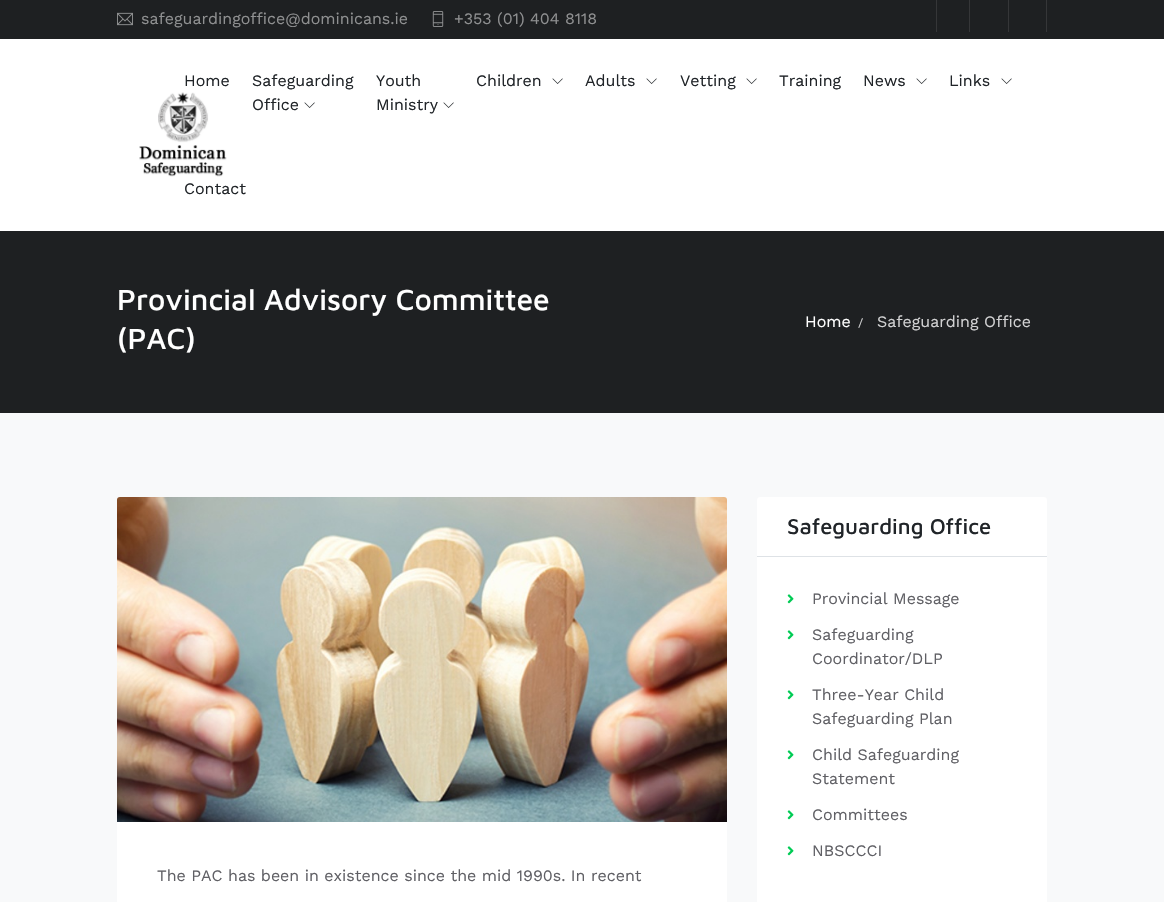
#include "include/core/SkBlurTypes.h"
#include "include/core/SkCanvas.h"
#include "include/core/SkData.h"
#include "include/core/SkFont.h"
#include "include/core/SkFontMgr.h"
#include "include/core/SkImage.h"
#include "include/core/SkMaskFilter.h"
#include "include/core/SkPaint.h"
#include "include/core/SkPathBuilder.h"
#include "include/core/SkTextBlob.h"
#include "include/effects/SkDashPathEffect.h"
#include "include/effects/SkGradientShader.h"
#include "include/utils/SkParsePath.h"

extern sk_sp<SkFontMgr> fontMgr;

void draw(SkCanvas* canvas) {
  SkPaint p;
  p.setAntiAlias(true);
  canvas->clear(SK_ColorWHITE);
  p.setColor(SkColorSetRGB(30, 32, 34));
  canvas->drawRect(SkRect::MakeLTRB(0, 0, 1164, 39), p);
  canvas->drawImageRect(SkImages::DeferredFromEncodedData(SkData::MakeFromFileName("images/1.png")), SkRect::MakeLTRB(117, 12, 133, 26), SkSamplingOptions());
  canvas->drawImageRect(SkImages::DeferredFromEncodedData(SkData::MakeFromFileName("images/2.png")), SkRect::MakeLTRB(432, 11, 444, 27), SkSamplingOptions());
  p.setColor(SkColorSetRGB(53, 54, 56));
  canvas->drawRect(SkRect::MakeLTRB(969, 0, 970, 32), p);
  canvas->drawRect(SkRect::MakeLTRB(936, 0, 937, 32), p);
  canvas->drawRect(SkRect::MakeLTRB(1008, 0, 1009, 32), p);
  canvas->drawRect(SkRect::MakeLTRB(1046, 0, 1047, 32), p);
  canvas->drawImageRect(SkImages::DeferredFromEncodedData(SkData::MakeFromFileName("images/3.png")), SkRect::MakeLTRB(139, 92, 227, 177), SkSamplingOptions());
  canvas->drawImageRect(SkImages::DeferredFromEncodedData(SkData::MakeFromFileName("images/4.png")), SkRect::MakeLTRB(304, 102, 315, 108), SkSamplingOptions());
  canvas->drawImageRect(SkImages::DeferredFromEncodedData(SkData::MakeFromFileName("images/4.png")), SkRect::MakeLTRB(443, 102, 454, 108), SkSamplingOptions());
  canvas->drawImageRect(SkImages::DeferredFromEncodedData(SkData::MakeFromFileName("images/4.png")), SkRect::MakeLTRB(552, 78, 563, 84), SkSamplingOptions());
  canvas->drawImageRect(SkImages::DeferredFromEncodedData(SkData::MakeFromFileName("images/4.png")), SkRect::MakeLTRB(646, 78, 657, 84), SkSamplingOptions());
  canvas->drawImageRect(SkImages::DeferredFromEncodedData(SkData::MakeFromFileName("images/4.png")), SkRect::MakeLTRB(746, 78, 757, 84), SkSamplingOptions());
  canvas->drawImageRect(SkImages::DeferredFromEncodedData(SkData::MakeFromFileName("images/4.png")), SkRect::MakeLTRB(916, 78, 927, 84), SkSamplingOptions());
  canvas->drawImageRect(SkImages::DeferredFromEncodedData(SkData::MakeFromFileName("images/4.png")), SkRect::MakeLTRB(1001, 78, 1012, 84), SkSamplingOptions());
  p.setColor(SkColorSetRGB(30, 32, 34));
  canvas->drawRect(SkRect::MakeLTRB(0, 231, 1164, 413), p);
  p.setColor(SkColorSetRGB(248, 249, 250));
  canvas->drawRect(SkRect::MakeLTRB(0, 413, 1164, 902), p);
  p.setColor(SK_ColorWHITE);
  canvas->drawRoundRect(SkRect::MakeLTRB(757, 497, 1047, 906), 4, 4, p);
  canvas->drawPath(SkPathBuilder().moveTo(760, 497).lineTo(1044, 497).cubicTo(1045.5f, 497, 1047, 498.5f, 1047, 500).lineTo(1047, 557).lineTo(757, 557).lineTo(757, 500).cubicTo(757, 498.5f, 758.5f, 497, 760, 497).close().detach(), p);
  p.setColor(SkColorSetRGB(222, 226, 230));
  canvas->drawRect(SkRect::MakeLTRB(757, 556, 1047, 557), p);
  canvas->drawImageRect(SkImages::DeferredFromEncodedData(SkData::MakeFromFileName("images/5.png")), SkRect::MakeLTRB(787, 594, 794, 604), SkSamplingOptions());
  canvas->drawImageRect(SkImages::DeferredFromEncodedData(SkData::MakeFromFileName("images/5.png")), SkRect::MakeLTRB(787, 630, 794, 640), SkSamplingOptions());
  canvas->drawImageRect(SkImages::DeferredFromEncodedData(SkData::MakeFromFileName("images/5.png")), SkRect::MakeLTRB(787, 690, 794, 700), SkSamplingOptions());
  canvas->drawImageRect(SkImages::DeferredFromEncodedData(SkData::MakeFromFileName("images/5.png")), SkRect::MakeLTRB(787, 750, 794, 760), SkSamplingOptions());
  canvas->drawImageRect(SkImages::DeferredFromEncodedData(SkData::MakeFromFileName("images/5.png")), SkRect::MakeLTRB(787, 810, 794, 820), SkSamplingOptions());
  canvas->drawImageRect(SkImages::DeferredFromEncodedData(SkData::MakeFromFileName("images/5.png")), SkRect::MakeLTRB(787, 846, 794, 856), SkSamplingOptions());
  p.setColor(SK_ColorWHITE);
  canvas->drawRoundRect(SkRect::MakeLTRB(117, 497, 727, 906), 4, 4, p);
  canvas->drawImageRect(SkImages::DeferredFromEncodedData(SkData::MakeFromFileName("images/6.png")), SkRect::MakeLTRB(117, 497, 727, 822), SkSamplingOptions());
  SkFont font1(fontMgr->matchFamilyStyle("Work Sans", SkFontStyle::Normal()), 16);
  font1.setSubpixel(true);
  p.setColor(SkColorSetRGB(143, 144, 145));
  canvas->drawString("safeguardingoffice@dominicans.ie", 141, 24, font1, p);
  canvas->drawString("+353 (01) 404 8118", 454, 24, font1, p);
  p.setColor(SkColorSetRGB(32, 36, 40));
  canvas->drawString("Home", 184, 86, font1, p);
  canvas->drawString("Safeguarding", 252, 86, font1, p);
  canvas->drawString("Office", 252, 110, font1, p);
  canvas->drawString("Youth", 376, 86, font1, p);
  canvas->drawString("Ministry", 376, 110, font1, p);
  canvas->drawString("Children", 476, 86, font1, p);
  canvas->drawString("Adults", 585, 86, font1, p);
  canvas->drawString("Vetting", 680, 86, font1, p);
  canvas->drawString("Training", 779, 86, font1, p);
  canvas->drawString("News", 863, 86, font1, p);
  canvas->drawString("Links", 949, 86, font1, p);
  canvas->drawString("Contact", 184, 194, font1, p);
  SkFont font2(fontMgr->matchFamilyStyle("Maven Pro", SkFontStyle(500, SkFontStyle::kNormal_Width, SkFontStyle::kUpright_Slant)), 30);
  font2.setSubpixel(true);
  p.setColor(SK_ColorWHITE);
  canvas->drawString("Provincial Advisory Committee", 117, 310, font2, p);
  canvas->drawString("(PAC)", 117, 349, font2, p);
  canvas->drawString("Home", 805, 327, font1, p);
  SkFont font3(fontMgr->matchFamilyStyle("Work Sans", SkFontStyle::Normal()), 12);
  font3.setSubpixel(true);
  p.setColor(SkColorSetRGB(210, 210, 211));
  canvas->drawString("/", 858, 327, font3, p);
  canvas->drawString("Safeguarding Office", 877, 327, font1, p);
  SkFont font4(fontMgr->matchFamilyStyle("Maven Pro", SkFontStyle(500, SkFontStyle::kNormal_Width, SkFontStyle::kUpright_Slant)), 22);
  font4.setSubpixel(true);
  p.setColor(SkColorSetRGB(32, 36, 40));
  canvas->drawString("Safeguarding Office", 787, 534, font4, p);
  p.setColor(SkColorSetRGB(96, 96, 101));
  canvas->drawString("Provincial Message", 812, 604, font1, p);
  canvas->drawString("Safeguarding", 812, 640, font1, p);
  canvas->drawString("Coordinator/DLP", 812, 664, font1, p);
  canvas->drawString("Three-Year Child", 812, 700, font1, p);
  canvas->drawString("Safeguarding Plan", 812, 724, font1, p);
  canvas->drawString("Child Safeguarding", 812, 760, font1, p);
  canvas->drawString("Statement", 812, 784, font1, p);
  canvas->drawString("Committees", 812, 820, font1, p);
  canvas->drawString("NBSCCCI", 812, 856, font1, p);
  canvas->drawString("The PAC has been in existence since the mid 1990s. In recent", 157, 881, font1, p);
}
